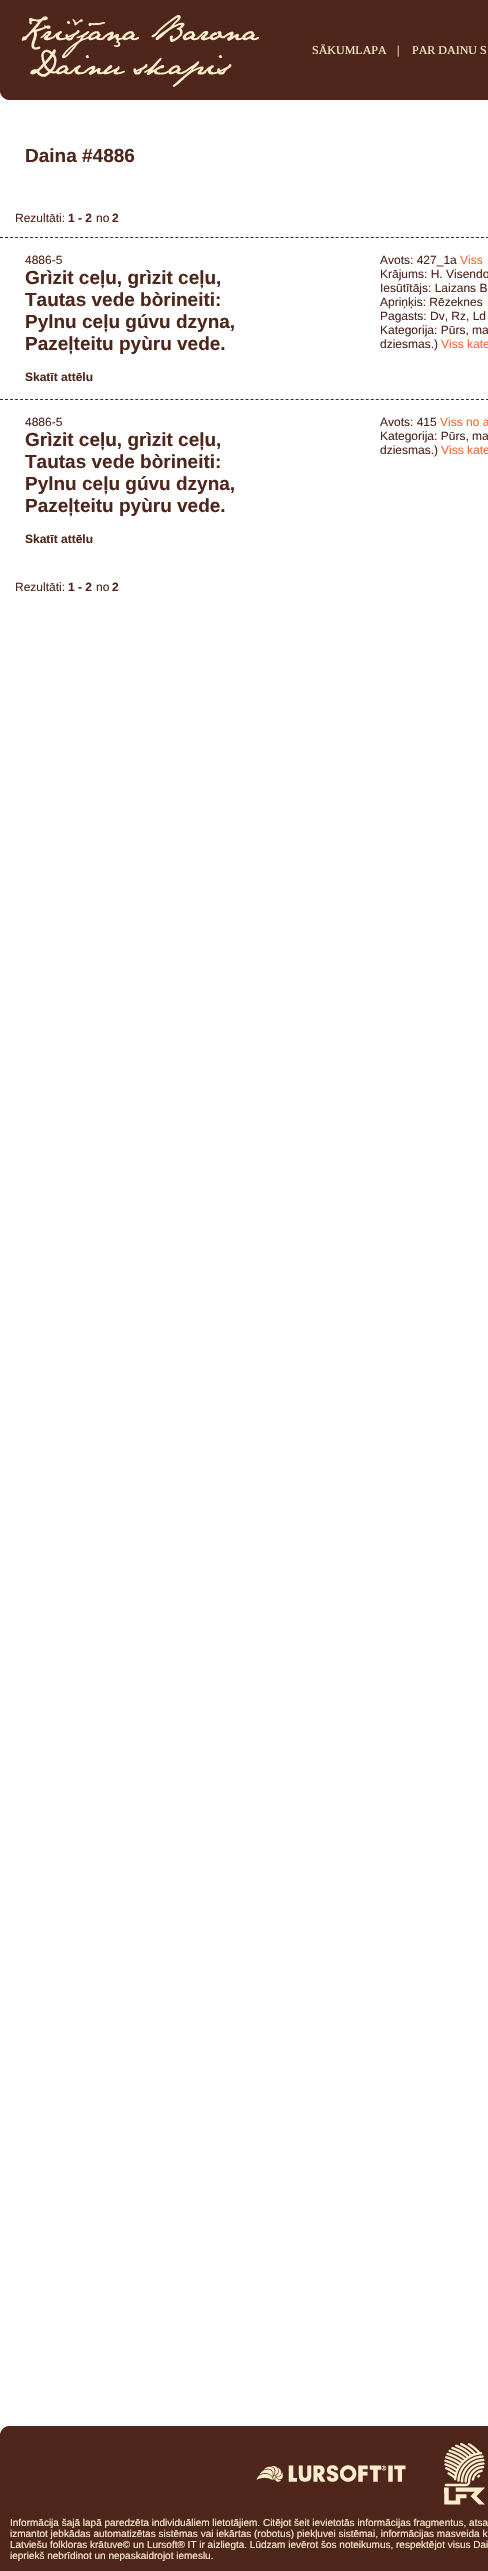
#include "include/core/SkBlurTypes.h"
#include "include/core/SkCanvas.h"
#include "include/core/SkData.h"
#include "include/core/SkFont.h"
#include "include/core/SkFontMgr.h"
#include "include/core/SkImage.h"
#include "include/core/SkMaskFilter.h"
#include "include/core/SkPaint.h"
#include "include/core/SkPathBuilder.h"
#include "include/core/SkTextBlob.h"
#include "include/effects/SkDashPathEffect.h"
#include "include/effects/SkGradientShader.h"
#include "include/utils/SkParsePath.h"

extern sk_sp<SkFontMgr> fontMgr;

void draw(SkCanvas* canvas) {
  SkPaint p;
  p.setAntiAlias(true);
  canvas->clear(SK_ColorWHITE);
  p.setColor(SkColorSetRGB(78, 38, 28));
  canvas->drawRect(SkRect::MakeLTRB(0, 0, 488, 100), p);
  canvas->drawImageRect(SkImages::DeferredFromEncodedData(SkData::MakeFromFileName("images/1.png")), SkRect::MakeLTRB(21, 15, 259, 87), SkSamplingOptions());
  p.setColor(SK_ColorWHITE);
  canvas->drawRect(SkRect::MakeLTRB(0, 95, 5, 100), p);
  canvas->drawImageRect(SkImages::DeferredFromEncodedData(SkData::MakeFromFileName("images/2.png")), SkRect::MakeLTRB(0, 80, 20, 100), SkSamplingOptions());
  p.setStyle(SkPaint::kStroke_Style);
  p.setStrokeWidth(1);
  p.setColor(SkColorSetRGB(78, 38, 28));
  p.setPathEffect(SkDashPathEffect::Make({{3, 2.01f}}, 0));
  canvas->drawPath(SkPathBuilder().moveTo(0, 237.5f).lineTo(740, 237.5f).detach(), p);
  p.setPathEffect(nullptr);
  p.setPathEffect(SkDashPathEffect::Make({{3, 2.01f}}, 0));
  canvas->drawPath(SkPathBuilder().moveTo(0, 399.5f).lineTo(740, 399.5f).detach(), p);
  p.setPathEffect(nullptr);
  p.setStyle(SkPaint::kFill_Style);
  canvas->drawRect(SkRect::MakeLTRB(0, 2426, 488, 2571), p);
  p.setColor(SK_ColorWHITE);
  canvas->drawRect(SkRect::MakeLTRB(0, 2426, 5, 2431), p);
  canvas->drawImageRect(SkImages::DeferredFromEncodedData(SkData::MakeFromFileName("images/3.png")), SkRect::MakeLTRB(0, 2426, 20, 2446), SkSamplingOptions());
  canvas->drawImageRect(SkImages::DeferredFromEncodedData(SkData::MakeFromFileName("images/4.png")), SkRect::MakeLTRB(256, 2465, 406, 2482), SkSamplingOptions());
  canvas->drawImageRect(SkImages::DeferredFromEncodedData(SkData::MakeFromFileName("images/5.png")), SkRect::MakeLTRB(444, 2443, 485, 2505), SkSamplingOptions());
  SkFont font1(fontMgr->matchFamilyStyle("Liberation Serif", SkFontStyle::Normal()), 12);
  font1.setSubpixel(true);
  p.setColor(SkColorSetRGB(252, 237, 204));
  canvas->drawString("SĀKUMLAPA", 312, 54, font1, p);
  canvas->drawString("|", 397, 54, font1, p);
  canvas->drawString("PAR DAINU S", 412, 54, font1, p);
  SkFont font2(fontMgr->matchFamilyStyle("Liberation Sans", SkFontStyle::Bold()), 19);
  font2.setSubpixel(true);
  p.setColor(SkColorSetRGB(78, 38, 28));
  canvas->drawString("Daina #4886", 25, 162, font2, p);
  SkFont font3(fontMgr->matchFamilyStyle("Liberation Sans", SkFontStyle::Normal()), 12);
  font3.setSubpixel(true);
  canvas->drawString("Rezultāti:", 15, 222, font3, p);
  SkFont font4(fontMgr->matchFamilyStyle("Liberation Sans", SkFontStyle::Bold()), 12);
  font4.setSubpixel(true);
  canvas->drawString("1 - 2", 68, 222, font4, p);
  canvas->drawString("no", 96, 222, font3, p);
  canvas->drawString("2", 112, 222, font4, p);
  canvas->drawString("4886-5", 25, 264, font3, p);
  canvas->drawString("Grìzit ceļu, grìzit ceļu,", 25, 284, font2, p);
  canvas->drawString("Tautas vede bòrineiti:", 25, 306, font2, p);
  canvas->drawString("Pylnu ceļu gúvu dzyna,", 25, 328, font2, p);
  canvas->drawString("Pazeļteitu pyùru vede.", 25, 350, font2, p);
  canvas->drawString("Avots: 427_1a", 380, 264, font3, p);
  p.setColor(SkColorSetRGB(255, 102, 51));
  canvas->drawString("Viss", 460, 264, font3, p);
  p.setColor(SkColorSetRGB(78, 38, 28));
  canvas->drawString("Krājums: H. Visendo", 380, 278, font3, p);
  canvas->drawString("Iesūtītājs: Laizans B", 380, 292, font3, p);
  canvas->drawString("Apriņķis: Rēzeknes", 380, 306, font3, p);
  canvas->drawString("Pagasts: Dv, Rz, Ld", 380, 320, font3, p);
  canvas->drawString("Kategorija: Pūrs, ma", 380, 334, font3, p);
  canvas->drawString("dziesmas.)", 380, 348, font3, p);
  p.setColor(SkColorSetRGB(255, 102, 51));
  canvas->drawString("Viss kate", 441, 348, font3, p);
  p.setColor(SkColorSetRGB(78, 38, 28));
  canvas->drawString("Skatīt attēlu", 25, 381, font4, p);
  canvas->drawString("4886-5", 25, 426, font3, p);
  canvas->drawString("Grìzit ceļu, grìzit ceļu,", 25, 446, font2, p);
  canvas->drawString("Tautas vede bòrineiti:", 25, 468, font2, p);
  canvas->drawString("Pylnu ceļu gúvu dzyna,", 25, 490, font2, p);
  canvas->drawString("Pazeļteitu pyùru vede.", 25, 512, font2, p);
  canvas->drawString("Avots: 415", 380, 426, font3, p);
  p.setColor(SkColorSetRGB(255, 102, 51));
  canvas->drawString("Viss no a", 440, 426, font3, p);
  p.setColor(SkColorSetRGB(78, 38, 28));
  canvas->drawString("Kategorija: Pūrs, ma", 380, 440, font3, p);
  canvas->drawString("dziesmas.)", 380, 454, font3, p);
  p.setColor(SkColorSetRGB(255, 102, 51));
  canvas->drawString("Viss kate", 441, 454, font3, p);
  p.setColor(SkColorSetRGB(78, 38, 28));
  canvas->drawString("Skatīt attēlu", 25, 543, font4, p);
  canvas->drawString("Rezultāti:", 15, 591, font3, p);
  canvas->drawString("1 - 2", 68, 591, font4, p);
  canvas->drawString("no", 96, 591, font3, p);
  canvas->drawString("2", 112, 591, font4, p);
  SkFont font5(fontMgr->matchFamilyStyle("Liberation Sans", SkFontStyle::Normal()), 10);
  font5.setSubpixel(true);
  p.setColor(SkColorSetRGB(252, 237, 204));
  canvas->drawString("Informācija šajā lapā paredzēta individuāliem lietotājiem. Citējot šeit ievietotās informācijas fragmentus, atsa", 10, 2526, font5, p);
  canvas->drawString("izmantot jebkādas automatizētas sistēmas vai iekārtas (robotus) piekļuvei sistēmai, informācijas masveida k", 10, 2537, font5, p);
  canvas->drawString("Latviešu folkloras krātuve© un Lursoft® IT ir aizliegta. Lūdzam ievērot šos noteikumus, respektējot visus Dai", 10, 2548, font5, p);
  canvas->drawString("iepriekš nebrīdinot un nepaskaidrojot iemeslu.", 10, 2559, font5, p);
}
